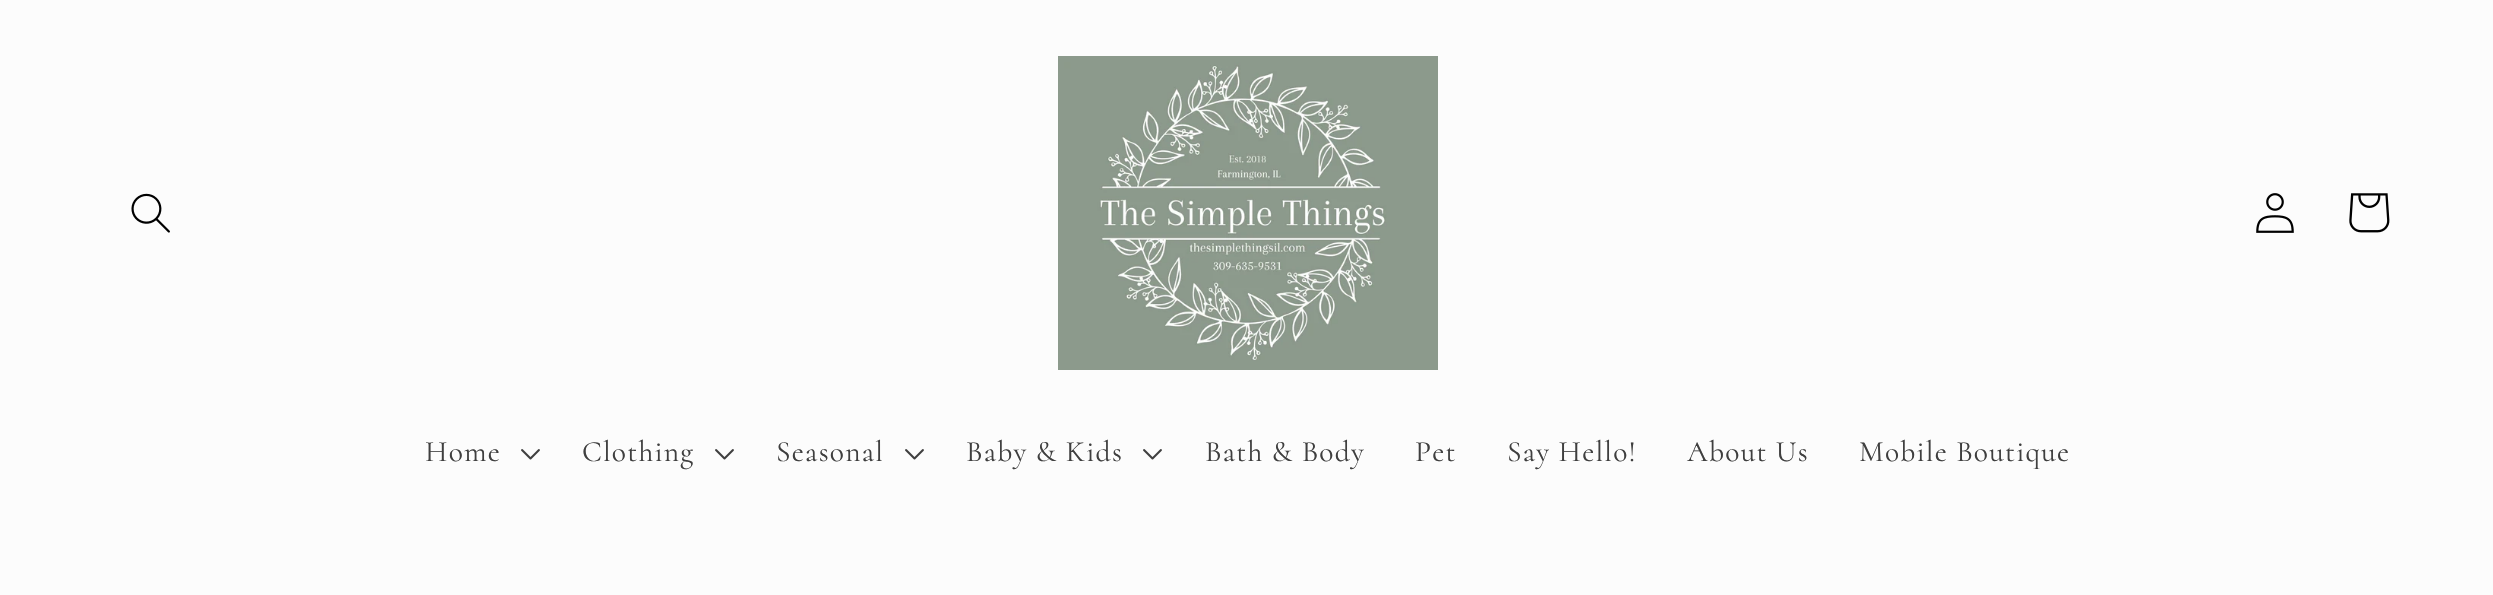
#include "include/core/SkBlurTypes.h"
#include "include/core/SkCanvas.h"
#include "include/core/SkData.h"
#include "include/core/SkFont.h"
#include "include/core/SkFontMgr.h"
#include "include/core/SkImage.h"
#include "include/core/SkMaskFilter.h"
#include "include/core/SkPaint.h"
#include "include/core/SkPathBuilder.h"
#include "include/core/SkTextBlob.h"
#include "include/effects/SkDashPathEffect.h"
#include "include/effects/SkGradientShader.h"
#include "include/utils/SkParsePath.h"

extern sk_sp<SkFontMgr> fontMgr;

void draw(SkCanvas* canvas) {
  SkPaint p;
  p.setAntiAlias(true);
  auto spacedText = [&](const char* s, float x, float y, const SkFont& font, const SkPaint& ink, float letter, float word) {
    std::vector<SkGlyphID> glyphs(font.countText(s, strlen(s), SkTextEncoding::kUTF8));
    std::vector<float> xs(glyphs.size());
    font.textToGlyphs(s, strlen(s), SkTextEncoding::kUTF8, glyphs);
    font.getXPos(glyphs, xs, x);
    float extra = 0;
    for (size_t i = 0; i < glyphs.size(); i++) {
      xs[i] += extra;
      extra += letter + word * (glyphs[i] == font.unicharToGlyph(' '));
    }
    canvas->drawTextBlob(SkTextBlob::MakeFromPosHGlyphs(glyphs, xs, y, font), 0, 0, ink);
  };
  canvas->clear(SkColorSetRGB(252, 252, 252));
  canvas->drawImageRect(SkImages::DeferredFromEncodedData(SkData::MakeFromFileName("images/1.png")), SkRect::MakeLTRB(131, 193, 170, 233), SkSamplingOptions());
  canvas->drawImageRect(SkImages::DeferredFromEncodedData(SkData::MakeFromFileName("images/2.png")), SkRect::MakeLTRB(1058, 56, 1438, 370), SkSamplingOptions());
  canvas->drawImageRect(SkImages::DeferredFromEncodedData(SkData::MakeFromFileName("images/3.png")), SkRect::MakeLTRB(2256, 193, 2294, 233), SkSamplingOptions());
  canvas->drawImageRect(SkImages::DeferredFromEncodedData(SkData::MakeFromFileName("images/4.png")), SkRect::MakeLTRB(2349, 193, 2390, 233), SkSamplingOptions());
  canvas->drawImageRect(SkImages::DeferredFromEncodedData(SkData::MakeFromFileName("images/5.png")), SkRect::MakeLTRB(521, 449, 540, 460), SkSamplingOptions());
  canvas->drawImageRect(SkImages::DeferredFromEncodedData(SkData::MakeFromFileName("images/5.png")), SkRect::MakeLTRB(715, 449, 734, 460), SkSamplingOptions());
  canvas->drawImageRect(SkImages::DeferredFromEncodedData(SkData::MakeFromFileName("images/5.png")), SkRect::MakeLTRB(905, 449, 924, 460), SkSamplingOptions());
  canvas->drawImageRect(SkImages::DeferredFromEncodedData(SkData::MakeFromFileName("images/5.png")), SkRect::MakeLTRB(1143, 449, 1162, 460), SkSamplingOptions());
  SkFont font1(fontMgr->matchFamilyStyle("Cormorant", SkFontStyle::Normal()), 29.5f);
  font1.setSubpixel(true);
  p.setColor(SkColorSetRGB(63, 63, 63));
  spacedText("Home", 425, 461, font1, p, 1.25f, 0);
  spacedText("Clothing", 582, 461, font1, p, 1.25f, 0);
  spacedText("Seasonal", 776, 461, font1, p, 1.25f, 0);
  spacedText("Baby & Kids", 966, 461, font1, p, 1.25f, 0);
  spacedText("Bath & Body", 1205, 461, font1, p, 1.25f, 0);
  spacedText("Pet", 1415, 461, font1, p, 1.25f, 0);
  spacedText("Say Hello!", 1507, 461, font1, p, 1.25f, 0);
  spacedText("About Us", 1687, 461, font1, p, 1.25f, 0);
  spacedText("Mobile Boutique", 1859, 461, font1, p, 1.25f, 0);
}
